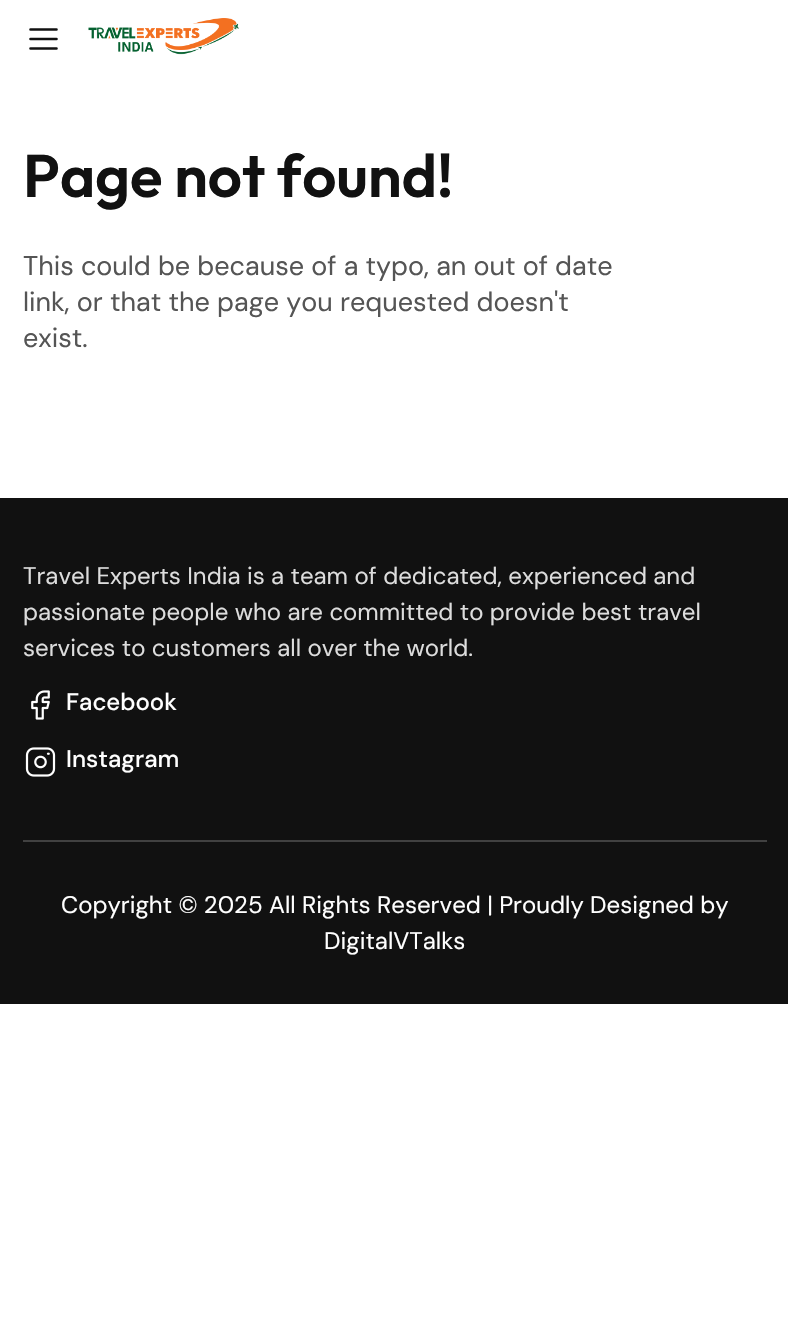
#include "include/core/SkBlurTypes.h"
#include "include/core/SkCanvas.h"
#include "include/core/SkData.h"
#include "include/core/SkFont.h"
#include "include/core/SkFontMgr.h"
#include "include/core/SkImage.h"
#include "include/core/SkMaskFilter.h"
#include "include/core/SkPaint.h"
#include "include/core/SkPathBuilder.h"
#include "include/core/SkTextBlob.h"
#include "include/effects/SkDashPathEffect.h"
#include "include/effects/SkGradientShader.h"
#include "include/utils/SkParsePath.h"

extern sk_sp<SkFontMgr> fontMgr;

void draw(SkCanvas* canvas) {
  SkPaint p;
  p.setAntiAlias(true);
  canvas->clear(SK_ColorWHITE);
  p.setStyle(SkPaint::kStroke_Style);
  p.setStrokeWidth(2.6f);
  p.setStrokeCap(SkPaint::kRound_Cap);
  p.setStrokeJoin(SkPaint::kRound_Join);
  p.setColor(SkColorSetRGB(17, 17, 17));
  canvas->drawPath(SkPathBuilder().moveTo(30.5f, 29.5f).lineTo(56.5f, 29.5f).moveTo(30.5f, 39).lineTo(56.5f, 39).moveTo(30.5f, 48.5f).lineTo(56.5f, 48.5f).detach(), p);
  canvas->drawImageRect(SkImages::DeferredFromEncodedData(SkData::MakeFromFileName("images/1.png")), SkRect::MakeLTRB(88, 18, 239, 55), SkSamplingOptions());
  p.setStyle(SkPaint::kFill_Style);
  canvas->drawRect(SkRect::MakeLTRB(0, 498, 788, 1004), p);
  canvas->drawImageRect(SkImages::DeferredFromEncodedData(SkData::MakeFromFileName("images/2.png")), SkRect::MakeLTRB(31, 690, 50, 720), SkSamplingOptions());
  canvas->drawImageRect(SkImages::DeferredFromEncodedData(SkData::MakeFromFileName("images/3.png")), SkRect::MakeLTRB(25, 747, 56, 777), SkSamplingOptions());
  p.setColor(SkColorSetRGB(65, 65, 65));
  canvas->drawRect(SkRect::MakeLTRB(23, 840, 767, 842), p);
  SkFont font1(fontMgr->matchFamilyStyle("Outfit", SkFontStyle(600, SkFontStyle::kNormal_Width, SkFontStyle::kUpright_Slant)), 60);
  font1.setSubpixel(true);
  p.setColor(SkColorSetRGB(17, 17, 17));
  canvas->drawString("Page not found!", 23, 197, font1, p);
  SkFont font2(fontMgr->matchFamilyStyle("DM Sans", SkFontStyle::Normal()), 27);
  font2.setSubpixel(true);
  p.setColor(SkColorSetRGB(85, 85, 85));
  canvas->drawString("This could be because of a typo, an out of date", 23, 275, font2, p);
  canvas->drawString("link, or that the page you requested doesn't", 23, 311, font2, p);
  canvas->drawString("exist.", 23, 347, font2, p);
  SkFont font3(fontMgr->matchFamilyStyle("DM Sans", SkFontStyle::Normal()), 24);
  font3.setSubpixel(true);
  p.setColor(SkColorSetRGB(221, 221, 221));
  canvas->drawString("Travel Experts India is a team of dedicated, experienced and", 23, 584, font3, p);
  canvas->drawString("passionate people who are committed to provide best travel", 23, 620, font3, p);
  canvas->drawString("services to customers all over the world.", 23, 656, font3, p);
  SkFont font4(fontMgr->matchFamilyStyle("DM Sans", SkFontStyle(500, SkFontStyle::kNormal_Width, SkFontStyle::kUpright_Slant)), 24);
  font4.setSubpixel(true);
  p.setColor(SK_ColorWHITE);
  canvas->drawString("Facebook", 66, 710, font4, p);
  canvas->drawString("Instagram", 66, 767, font4, p);
  canvas->drawString("Copyright © 2025 All Rights Reserved | Proudly Designed by", 61, 913, font3, p);
  canvas->drawString("DigitalVTalks", 324, 949, font3, p);
}
